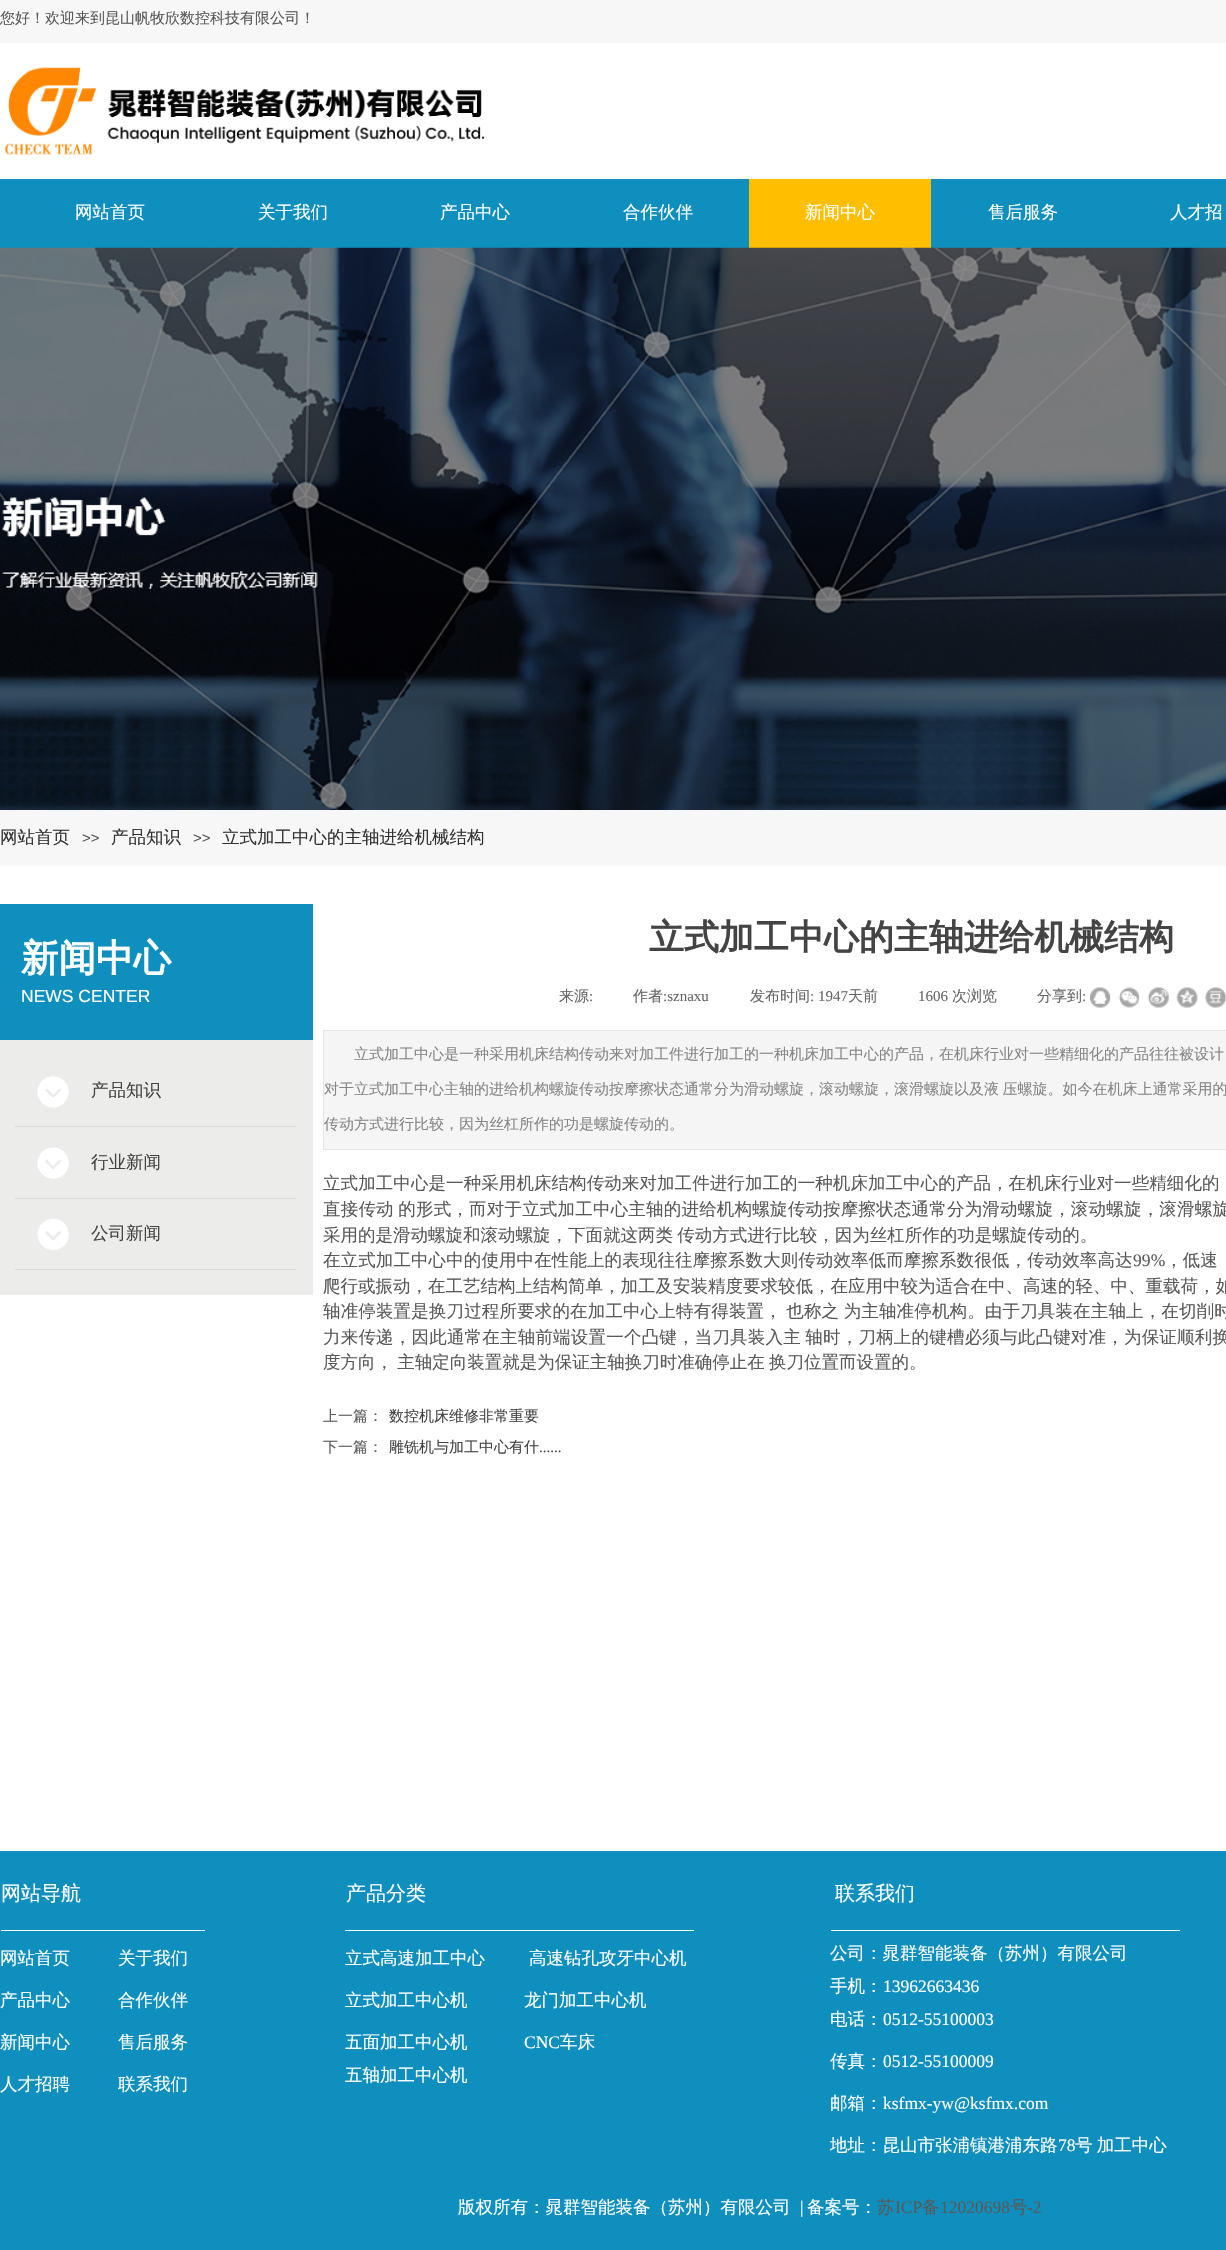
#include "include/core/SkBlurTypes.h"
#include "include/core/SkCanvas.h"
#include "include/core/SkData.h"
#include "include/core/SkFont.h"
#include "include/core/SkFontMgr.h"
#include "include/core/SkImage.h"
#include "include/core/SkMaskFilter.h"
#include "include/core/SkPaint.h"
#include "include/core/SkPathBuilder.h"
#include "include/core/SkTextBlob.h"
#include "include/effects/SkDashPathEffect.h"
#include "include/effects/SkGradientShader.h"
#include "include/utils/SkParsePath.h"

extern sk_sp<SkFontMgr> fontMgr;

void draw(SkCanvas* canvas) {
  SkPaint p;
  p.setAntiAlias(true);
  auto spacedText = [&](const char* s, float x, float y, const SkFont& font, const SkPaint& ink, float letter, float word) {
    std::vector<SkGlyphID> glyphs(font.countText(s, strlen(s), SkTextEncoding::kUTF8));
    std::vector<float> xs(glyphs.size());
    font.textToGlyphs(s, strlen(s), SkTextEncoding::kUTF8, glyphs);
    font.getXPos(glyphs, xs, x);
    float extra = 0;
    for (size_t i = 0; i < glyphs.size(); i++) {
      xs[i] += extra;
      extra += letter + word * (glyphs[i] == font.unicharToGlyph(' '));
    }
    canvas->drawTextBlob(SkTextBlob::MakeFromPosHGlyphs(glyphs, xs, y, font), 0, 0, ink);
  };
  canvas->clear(SK_ColorWHITE);
  p.setColor(SkColorSetRGB(247, 247, 247));
  canvas->drawRect(SkRect::MakeLTRB(0, 0, 1226, 43), p);
  canvas->drawImageRect(SkImages::DeferredFromEncodedData(SkData::MakeFromFileName("images/1.png")), SkRect::MakeLTRB(5, 67, 485, 155), SkSamplingOptions());
  p.setColor(SkColorSetRGB(15, 143, 190));
  canvas->drawRect(SkRect::MakeLTRB(0, 179, 1226, 248), p);
  p.setColor(SkColorSetRGB(255, 190, 0));
  canvas->drawRect(SkRect::MakeLTRB(749, 179, 931, 248), p);
  canvas->drawImageRect(SkImages::DeferredFromEncodedData(SkData::MakeFromFileName("images/2.png")), SkRect::MakeLTRB(0, 247, 1226, 810), SkSamplingOptions());
  p.setColor(SkColorSetRGB(247, 247, 247));
  canvas->drawRect(SkRect::MakeLTRB(0, 810, 1226, 866), p);
  p.setColor(SkColorSetRGB(15, 143, 190));
  canvas->drawRect(SkRect::MakeLTRB(0, 904, 313, 1040), p);
  canvas->drawImageRect(SkImages::DeferredFromEncodedData(SkData::MakeFromFileName("images/3.png")), SkRect::MakeLTRB(1090, 987, 1111, 1008), SkSamplingOptions());
  canvas->drawImageRect(SkImages::DeferredFromEncodedData(SkData::MakeFromFileName("images/4.png")), SkRect::MakeLTRB(1118, 987, 1140, 1008), SkSamplingOptions());
  canvas->drawImageRect(SkImages::DeferredFromEncodedData(SkData::MakeFromFileName("images/5.png")), SkRect::MakeLTRB(1147, 987, 1169, 1008), SkSamplingOptions());
  canvas->drawImageRect(SkImages::DeferredFromEncodedData(SkData::MakeFromFileName("images/6.png")), SkRect::MakeLTRB(1176, 987, 1198, 1008), SkSamplingOptions());
  canvas->drawImageRect(SkImages::DeferredFromEncodedData(SkData::MakeFromFileName("images/7.png")), SkRect::MakeLTRB(1205, 987, 1226, 1008), SkSamplingOptions());
  p.setColor(SkColorSetRGB(245, 245, 245));
  canvas->drawRect(SkRect::MakeLTRB(323.5f, 1030.5f, 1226.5f, 1149.5f), p);
  p.setStyle(SkPaint::kStroke_Style);
  p.setStrokeWidth(1);
  p.setColor(SkColorSetRGB(229, 229, 229));
  canvas->drawRect(SkRect::MakeLTRB(323.5f, 1030.5f, 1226.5f, 1149.5f), p);
  p.setStyle(SkPaint::kFill_Style);
  p.setColor(SkColorSetRGB(236, 236, 235));
  canvas->drawRect(SkRect::MakeLTRB(0, 1040, 313, 1295), p);
  p.setColor(SkColorSetRGB(217, 217, 217));
  canvas->drawRect(SkRect::MakeLTRB(15, 1126, 296, 1127), p);
  canvas->drawImageRect(SkImages::DeferredFromEncodedData(SkData::MakeFromFileName("images/8.png")), SkRect::MakeLTRB(37, 1076, 69, 1108), SkSamplingOptions());
  canvas->drawRect(SkRect::MakeLTRB(15, 1198, 296, 1199), p);
  canvas->drawImageRect(SkImages::DeferredFromEncodedData(SkData::MakeFromFileName("images/9.png")), SkRect::MakeLTRB(37, 1147, 69, 1179), SkSamplingOptions());
  canvas->drawRect(SkRect::MakeLTRB(15, 1269, 296, 1270), p);
  canvas->drawImageRect(SkImages::DeferredFromEncodedData(SkData::MakeFromFileName("images/10.png")), SkRect::MakeLTRB(37, 1218, 69, 1250), SkSamplingOptions());
  p.setColor(SkColorSetRGB(15, 143, 190));
  canvas->drawRect(SkRect::MakeLTRB(0, 1851, 1226, 2250), p);
  p.setColor(SK_ColorWHITE);
  canvas->drawRect(SkRect::MakeLTRB(1, 1930, 205, 1931), p);
  canvas->drawRect(SkRect::MakeLTRB(345, 1930, 694, 1931), p);
  canvas->drawRect(SkRect::MakeLTRB(831, 1930, 1180, 1931), p);
  SkFont font1(fontMgr->matchFamilyStyle("WenQuanYi Zen Hei", SkFontStyle(500, SkFontStyle::kNormal_Width, SkFontStyle::kUpright_Slant)), 15);
  font1.setSubpixel(true);
  p.setColor(SkColorSetRGB(89, 89, 89));
  canvas->drawString("您好！欢迎来到昆山帆牧欣数控科技有限公司！", 0, 23, font1, p);
  SkFont font2(fontMgr->matchFamilyStyle("WenQuanYi Zen Hei", SkFontStyle(500, SkFontStyle::kNormal_Width, SkFontStyle::kUpright_Slant)), 17.5f);
  font2.setSubpixel(true);
  p.setColor(SK_ColorWHITE);
  canvas->drawString("网站首页", 75, 218, font2, p);
  canvas->drawString("关于我们", 258, 218, font2, p);
  canvas->drawString("产品中心", 440, 218, font2, p);
  canvas->drawString("合作伙伴", 623, 218, font2, p);
  canvas->drawString("新闻中心", 805, 218, font2, p);
  canvas->drawString("售后服务", 988, 218, font2, p);
  canvas->drawString("人才招", 1170, 218, font2, p);
  p.setColor(SkColorSetRGB(51, 51, 51));
  canvas->drawString("网站首页", 0, 843, font2, p);
  SkFont font3(fontMgr->matchFamilyStyle("Liberation Sans", SkFontStyle::Normal()), 15);
  font3.setSubpixel(true);
  p.setColor(SkColorSetRGB(89, 89, 89));
  canvas->drawString(">>", 82, 843, font3, p);
  p.setColor(SkColorSetRGB(51, 51, 51));
  canvas->drawString("产品知识", 111, 843, font2, p);
  p.setColor(SkColorSetRGB(89, 89, 89));
  canvas->drawString(">>", 193, 843, font3, p);
  p.setColor(SkColorSetRGB(51, 51, 51));
  canvas->drawString("立式加工中心的主轴进给机械结构", 222, 843, font2, p);
  SkFont font4(fontMgr->matchFamilyStyle("WenQuanYi Zen Hei", SkFontStyle::Bold()), 37.5f);
  font4.setSubpixel(true);
  p.setColor(SK_ColorWHITE);
  canvas->drawString("新闻中心", 21, 971, font4, p);
  SkFont font5(fontMgr->matchFamilyStyle("Liberation Sans", SkFontStyle::Normal()), 17.5f);
  font5.setSubpixel(true);
  canvas->drawString("NEWS CENTER", 21, 1002, font5, p);
  SkFont font6(fontMgr->matchFamilyStyle("WenQuanYi Zen Hei", SkFontStyle::Bold()), 35);
  font6.setSubpixel(true);
  p.setColor(SkColorSetRGB(68, 68, 68));
  canvas->drawString("立式加工中心的主轴进给机械结构", 649, 949, font6, p);
  p.setColor(SkColorSetRGB(102, 102, 102));
  canvas->drawString("来源", 559, 1001, font1, p);
  SkFont font7(fontMgr->matchFamilyStyle("Liberation Serif", SkFontStyle::Normal()), 15);
  font7.setSubpixel(true);
  canvas->drawString(":", 589, 1001, font7, p);
  canvas->drawString("作者", 633, 1001, font1, p);
  canvas->drawString(":sznaxu", 663, 1001, font7, p);
  canvas->drawString("发布时间", 750, 1001, font1, p);
  canvas->drawString(": 1947", 810, 1001, font7, p);
  canvas->drawString("天前", 848, 1001, font1, p);
  canvas->drawString("1606", 918, 1001, font7, p);
  canvas->drawString("次浏览", 952, 1001, font1, p);
  canvas->drawString("分享到", 1037, 1001, font1, p);
  canvas->drawString(":", 1082, 1001, font7, p);
  p.setColor(SkColorSetRGB(134, 134, 134));
  spacedText("立式加工中心是一种采用机床结构传动来对加工件进行加工的一种机床加工中心的产品，在机床行业对一些精细化的产品往往被设计", 354, 1059, font1, p, 0, -1);
  spacedText("对于立式加工中心主轴的进给机构螺旋传动按摩擦状态通常分为滑动螺旋，滚动螺旋，滚滑螺旋以及液 压螺旋。如今在机床上通常采用的", 324, 1094, font1, p, 0, -1);
  canvas->drawString("传动方式进行比较，因为丝杠所作的功是螺旋传动的。", 324, 1129, font1, p);
  p.setColor(SkColorSetRGB(89, 89, 89));
  spacedText("立式加工中心是一种采用机床结构传动来对加工件进行加工的一种机床加工中心的产品，在机床行业对一些精细化的", 323, 1189, font2, p, 0.08f, 0);
  spacedText("直接传动 的形式，而对于立式加工中心主轴的进给机构螺旋传动按摩擦状态通常分为滑动螺旋，滚动螺旋，滚滑螺旋", 323, 1215, font2, p, 0.2f, -1);
  spacedText("采用的是滑动螺旋和滚动螺旋，下面就这两类 传动方式进行比较，因为丝杠所作的功是螺旋传动的。", 323, 1241, font2, p, 0, -1);
  spacedText("在立式加工中心中的使用中在性能上的表现往往摩擦系数大则传动效率低而摩擦系数很低，传动效率高达", 323, 1266, font2, p, 0.1f, 0);
  SkFont font8(fontMgr->matchFamilyStyle("Liberation Serif", SkFontStyle::Normal()), 17.5f);
  font8.setSubpixel(true);
  spacedText("99%", 1133, 1266, font8, p, 0.1f, 0);
  spacedText("，低速", 1165, 1266, font2, p, 0.1f, 0);
  spacedText("爬行或振动，在工艺结构上结构简单，加工及安装精度要求较低，在应用中较为适合在中、高速的轻、中、重载荷，如", 323, 1292, font2, p, 0, -1);
  canvas->save();
  canvas->clipRect(SkRect::MakeLTRB(323, 904, 1226, 1464));
  spacedText("轴准停装置是换刀过程所要求的在加工中心上特有得装置， 也称之 为主轴准停机构。由于刀具装在主轴上，在切削时", 323, 1317, font2, p, 0.15f, -1);
  canvas->restore();
  spacedText("力来传递，因此通常在主轴前端设置一个凸键，当刀具装入主 轴时，刀柄上的键槽必须与此凸键对准，为保证顺利换", 323, 1343, font2, p, 0.2f, -1);
  spacedText("度方向， 主轴定向装置就是为保证主轴换刀时准确停止在 换刀位置而设置的。", 323, 1368, font2, p, 0, -1);
  canvas->drawString("上一篇：", 323, 1421, font1, p);
  p.setColor(SkColorSetRGB(68, 68, 68));
  canvas->drawString("数控机床维修非常重要", 389, 1421, font1, p);
  p.setColor(SkColorSetRGB(89, 89, 89));
  canvas->drawString("下一篇：", 323, 1452, font1, p);
  p.setColor(SkColorSetRGB(68, 68, 68));
  canvas->drawString("雕铣机与加工中心有什", 389, 1452, font1, p);
  canvas->drawString("......", 539, 1452, font7, p);
  canvas->drawString("产品知识", 91, 1096, font2, p);
  canvas->drawString("行业新闻", 91, 1168, font2, p);
  canvas->drawString("公司新闻", 91, 1239, font2, p);
  SkFont font9(fontMgr->matchFamilyStyle("WenQuanYi Zen Hei", SkFontStyle(500, SkFontStyle::kNormal_Width, SkFontStyle::kUpright_Slant)), 20);
  font9.setSubpixel(true);
  p.setColor(SK_ColorWHITE);
  canvas->drawString("网站导航", 1, 1900, font9, p);
  canvas->drawString("产品分类", 346, 1900, font9, p);
  canvas->drawString("联系我们", 835, 1900, font9, p);
  canvas->drawString("网站首页", 0, 1964, font2, p);
  canvas->drawString("关于我们", 118, 1964, font2, p);
  canvas->drawString("产品中心", 0, 2006, font2, p);
  canvas->drawString("合作伙伴", 118, 2006, font2, p);
  canvas->drawString("新闻中心", 0, 2048, font2, p);
  canvas->drawString("售后服务", 118, 2048, font2, p);
  canvas->drawString("人才招聘", 0, 2090, font2, p);
  canvas->drawString("联系我们", 118, 2090, font2, p);
  canvas->drawString("立式高速加工中心", 345, 1964, font2, p);
  canvas->drawString("高速钻孔攻牙中心机", 529, 1964, font2, p);
  canvas->drawString("立式加工中心机", 345, 2006, font2, p);
  canvas->drawString("龙门加工中心机", 524, 2006, font2, p);
  canvas->drawString("五面加工中心机", 345, 2048, font2, p);
  canvas->drawString("CNC", 524, 2048, font8, p);
  canvas->drawString("车床", 560, 2048, font2, p);
  canvas->drawString("五轴加工中心机", 345, 2081, font2, p);
  canvas->drawString("公司：晁群智能装备（苏州）有限公司", 830, 1959, font2, p);
  canvas->drawString("手机：", 830, 1992, font2, p);
  canvas->drawString("13962663436", 883, 1992, font8, p);
  canvas->drawString("电话：", 830, 2025, font2, p);
  canvas->drawString("0512-55100003", 883, 2025, font8, p);
  canvas->drawString("传真：", 830, 2067, font2, p);
  canvas->drawString("0512-55100009", 883, 2067, font8, p);
  canvas->drawString("邮箱：", 830, 2109, font2, p);
  canvas->drawString("ksfmx-yw@ksfmx.com", 883, 2109, font8, p);
  canvas->drawString("地址：昆山市张浦镇港浦东路", 830, 2151, font2, p);
  canvas->drawString("78", 1058, 2151, font8, p);
  spacedText("号 加工中心", 1075, 2151, font2, p, 0, -1);
  canvas->drawString("版权所有：晁群智能装备（苏州）有限公司", 458, 2213, font2, p);
  canvas->drawString("|", 800, 2213, font8, p);
  canvas->drawString("备案号：", 807, 2213, font2, p);
  p.setColor(SkColorSetRGB(89, 89, 89));
  canvas->drawString("苏", 877, 2213, font2, p);
  canvas->drawString("ICP", 895, 2213, font8, p);
  canvas->drawString("备", 922, 2213, font2, p);
  canvas->drawString("12020698", 940, 2213, font8, p);
  canvas->drawString("号", 1010, 2213, font2, p);
  canvas->drawString("-2", 1027, 2213, font8, p);
}
